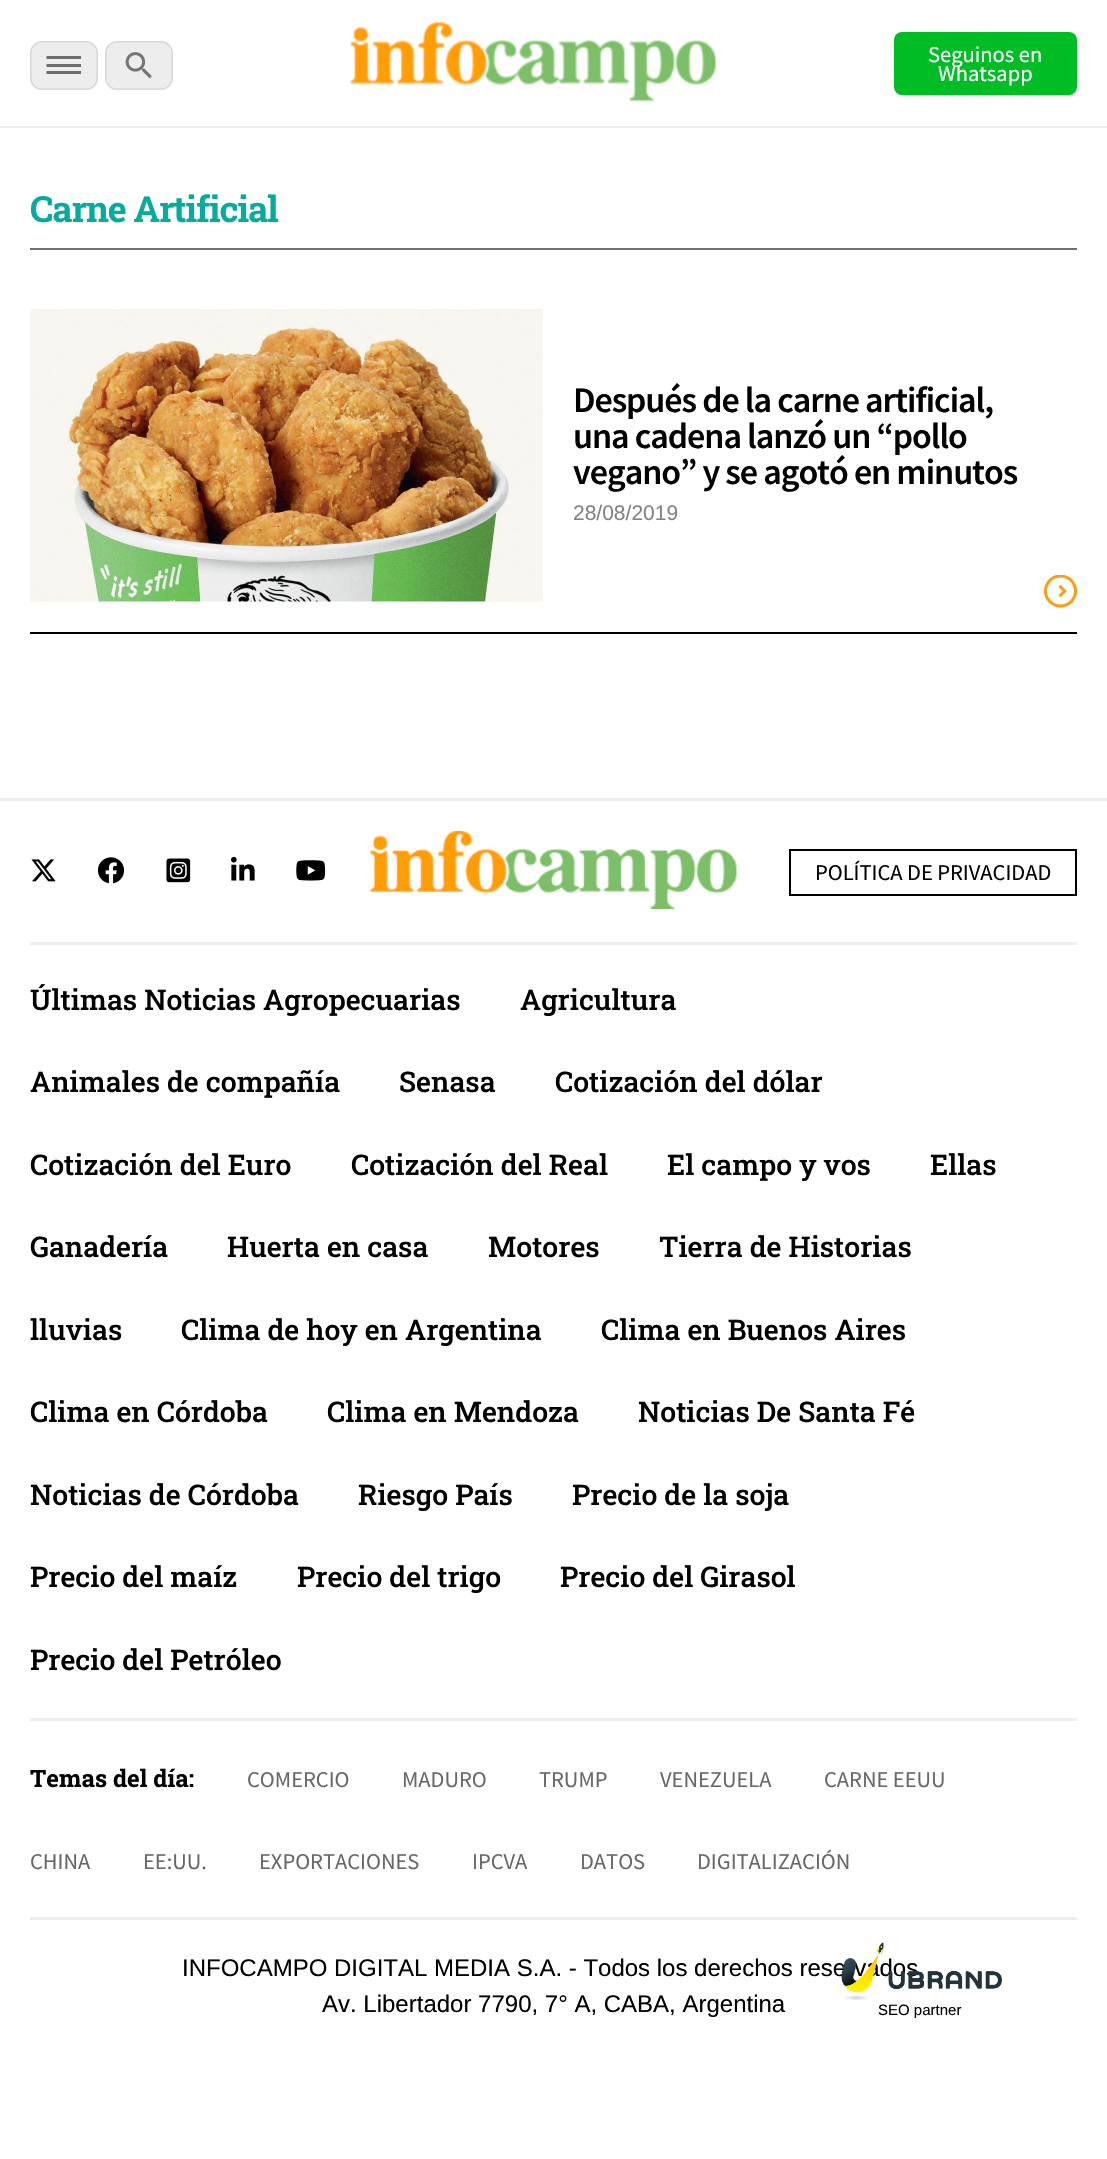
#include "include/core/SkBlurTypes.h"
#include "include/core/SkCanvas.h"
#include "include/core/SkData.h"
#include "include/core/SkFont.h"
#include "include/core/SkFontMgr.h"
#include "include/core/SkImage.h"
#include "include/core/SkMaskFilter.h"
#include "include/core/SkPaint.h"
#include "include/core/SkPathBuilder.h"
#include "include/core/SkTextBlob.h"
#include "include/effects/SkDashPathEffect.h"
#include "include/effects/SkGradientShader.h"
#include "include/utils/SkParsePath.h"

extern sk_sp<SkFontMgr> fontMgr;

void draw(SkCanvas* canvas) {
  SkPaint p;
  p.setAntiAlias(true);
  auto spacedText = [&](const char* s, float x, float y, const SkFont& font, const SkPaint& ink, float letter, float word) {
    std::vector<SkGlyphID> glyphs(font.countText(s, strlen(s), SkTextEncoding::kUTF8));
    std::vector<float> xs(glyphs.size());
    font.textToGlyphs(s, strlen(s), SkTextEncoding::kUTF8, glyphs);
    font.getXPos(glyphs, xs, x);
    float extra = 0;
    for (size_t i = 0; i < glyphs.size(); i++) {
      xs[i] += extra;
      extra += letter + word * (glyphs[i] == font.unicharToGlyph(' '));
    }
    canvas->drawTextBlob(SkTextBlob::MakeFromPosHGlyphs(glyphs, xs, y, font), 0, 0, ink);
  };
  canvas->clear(SK_ColorWHITE);
  p.setColor(SkColorSetRGB(236, 236, 236));
  canvas->drawRect(SkRect::MakeLTRB(0, 126, 1107, 128), p);
  p.setColor(SkColorSetRGB(237, 237, 237));
  canvas->drawRoundRect(SkRect::MakeLTRB(30, 41, 98, 90), 12, 12, p);
  p.setStyle(SkPaint::kStroke_Style);
  p.setStrokeWidth(1.5f);
  p.setColor(SkColorSetARGB(43, 112, 112, 112));
  canvas->drawRoundRect(SkRect::MakeLTRB(30.75f, 41.75f, 97.25f, 89.25f), 11.25f, 11.25f, p);
  p.setStyle(SkPaint::kFill_Style);
  p.setColor(SkColorSetRGB(109, 109, 109));
  canvas->drawPath(SkPathBuilder(SkPathFillType::kEvenOdd).moveTo(46.5f, 74).lineTo(81, 74).lineTo(81, 71).lineTo(46.5f, 71).close().moveTo(46.5f, 67).lineTo(81, 67).lineTo(81, 64).lineTo(46.5f, 64).close().moveTo(46.5f, 56).lineTo(46.5f, 59).lineTo(81, 59).lineTo(81, 56).close().detach(), p);
  canvas->drawImageRect(SkImages::DeferredFromEncodedData(SkData::MakeFromFileName("images/1.png")), SkRect::MakeLTRB(105, 41, 173, 90), SkSamplingOptions());
  canvas->drawImageRect(SkImages::DeferredFromEncodedData(SkData::MakeFromFileName("images/2.png")), SkRect::MakeLTRB(350, 21, 717, 102), SkSamplingOptions());
  p.setColor(SkColorSetRGB(0, 189, 38));
  canvas->drawRoundRect(SkRect::MakeLTRB(894, 32, 1077, 95), 8, 8, p);
  p.setColor(SkColorSetRGB(112, 112, 112));
  canvas->drawRect(SkRect::MakeLTRB(30, 248, 1077, 250), p);
  p.setColor(SK_ColorBLACK);
  canvas->drawRect(SkRect::MakeLTRB(30, 632, 1077, 634), p);
  canvas->drawImageRect(SkImages::DeferredFromEncodedData(SkData::MakeFromFileName("images/3.png")), SkRect::MakeLTRB(30, 309, 543, 602), SkSamplingOptions());
  canvas->drawImageRect(SkImages::DeferredFromEncodedData(SkData::MakeFromFileName("images/4.png")), SkRect::MakeLTRB(1044, 575, 1077, 608), SkSamplingOptions());
  p.setColor(SkColorSetRGB(238, 238, 238));
  canvas->drawRect(SkRect::MakeLTRB(0, 798, 1107, 801), p);
  canvas->drawRect(SkRect::MakeLTRB(30, 942, 1077, 945), p);
  canvas->drawImageRect(SkImages::DeferredFromEncodedData(SkData::MakeFromFileName("images/5.png")), SkRect::MakeLTRB(31, 859, 56, 882), SkSamplingOptions());
  canvas->drawImageRect(SkImages::DeferredFromEncodedData(SkData::MakeFromFileName("images/6.png")), SkRect::MakeLTRB(97, 857, 125, 884), SkSamplingOptions());
  canvas->drawImageRect(SkImages::DeferredFromEncodedData(SkData::MakeFromFileName("images/7.png")), SkRect::MakeLTRB(166, 858, 191, 883), SkSamplingOptions());
  canvas->drawImageRect(SkImages::DeferredFromEncodedData(SkData::MakeFromFileName("images/8.png")), SkRect::MakeLTRB(231, 856, 255, 881), SkSamplingOptions());
  canvas->drawImageRect(SkImages::DeferredFromEncodedData(SkData::MakeFromFileName("images/9.png")), SkRect::MakeLTRB(296, 860, 326, 881), SkSamplingOptions());
  canvas->drawImageRect(SkImages::DeferredFromEncodedData(SkData::MakeFromFileName("images/10.png")), SkRect::MakeLTRB(370, 831, 737, 909), SkSamplingOptions());
  p.setStyle(SkPaint::kStroke_Style);
  p.setStrokeWidth(2);
  p.setColor(SK_ColorBLACK);
  canvas->drawRect(SkRect::MakeLTRB(790, 850, 1076, 895), p);
  p.setStyle(SkPaint::kFill_Style);
  p.setColor(SkColorSetRGB(238, 238, 238));
  canvas->drawRect(SkRect::MakeLTRB(30, 1917, 1077, 1920), p);
  canvas->drawRect(SkRect::MakeLTRB(30, 1718, 1077, 1721), p);
  SkFont font1(fontMgr->matchFamilyStyle("Source Sans Pro", SkFontStyle::Normal()), 22.5f);
  font1.setSubpixel(true);
  p.setColor(SK_ColorWHITE);
  canvas->drawString("Seguinos en", 928, 62, font1, p);
  canvas->drawString("Whatsapp", 938, 81, font1, p);
  SkFont font2(fontMgr->matchFamilyStyle("Roboto Slab", SkFontStyle::Bold()), 36);
  font2.setSubpixel(true);
  p.setColor(SkColorSetRGB(6, 171, 157));
  spacedText("Carne Artificial", 30, 222, font2, p, -1.05f, 0);
  SkFont font3(fontMgr->matchFamilyStyle("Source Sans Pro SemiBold", SkFontStyle(600, SkFontStyle::kNormal_Width, SkFontStyle::kUpright_Slant)), 36);
  font3.setSubpixel(true);
  p.setColor(SK_ColorBLACK);
  spacedText("Después de la carne artificial,", 573, 412, font3, p, -1.05f, 0);
  spacedText("una cadena lanzó un “pollo", 573, 448, font3, p, -1.05f, 0);
  spacedText("vegano” y se agotó en minutos", 573, 484, font3, p, -1.05f, 0);
  SkFont font4(fontMgr->matchFamilyStyle("Liberation Sans", SkFontStyle::Normal()), 21);
  font4.setSubpixel(true);
  p.setColor(SkColorSetRGB(131, 131, 131));
  canvas->drawString("28/08/2019", 573, 520, font4, p);
  p.setColor(SK_ColorBLACK);
  canvas->drawString("POLÍTICA DE PRIVACIDAD", 815, 880, font1, p);
  SkFont font5(fontMgr->matchFamilyStyle("Roboto Slab", SkFontStyle(500, SkFontStyle::kNormal_Width, SkFontStyle::kUpright_Slant)), 28.5f);
  font5.setSubpixel(true);
  canvas->drawString("Últimas Noticias Agropecuarias", 30, 1010, font5, p);
  canvas->drawString("Agricultura", 520, 1010, font5, p);
  canvas->drawString("Animales de compañía", 30, 1092, font5, p);
  canvas->drawString("Senasa", 399, 1092, font5, p);
  canvas->drawString("Cotización del dólar", 555, 1092, font5, p);
  canvas->drawString("Cotización del Euro", 30, 1175, font5, p);
  canvas->drawString("Cotización del Real", 351, 1175, font5, p);
  canvas->drawString("El campo y vos", 667, 1175, font5, p);
  canvas->drawString("Ellas", 930, 1175, font5, p);
  canvas->drawString("Ganadería", 30, 1257, font5, p);
  canvas->drawString("Huerta en casa", 227, 1257, font5, p);
  canvas->drawString("Motores", 488, 1257, font5, p);
  canvas->drawString("Tierra de Historias", 659, 1257, font5, p);
  canvas->drawString("lluvias", 30, 1340, font5, p);
  canvas->drawString("Clima de hoy en Argentina", 181, 1340, font5, p);
  canvas->drawString("Clima en Buenos Aires", 601, 1340, font5, p);
  canvas->drawString("Clima en Córdoba", 30, 1422, font5, p);
  canvas->drawString("Clima en Mendoza", 327, 1422, font5, p);
  canvas->drawString("Noticias De Santa Fé", 638, 1422, font5, p);
  canvas->drawString("Noticias de Córdoba", 30, 1505, font5, p);
  canvas->drawString("Riesgo País", 358, 1505, font5, p);
  canvas->drawString("Precio de la soja", 572, 1505, font5, p);
  canvas->drawString("Precio del maíz", 30, 1587, font5, p);
  canvas->drawString("Precio del trigo", 297, 1587, font5, p);
  canvas->drawString("Precio del Girasol", 560, 1587, font5, p);
  canvas->drawString("Precio del Petróleo", 30, 1670, font5, p);
  SkFont font6(fontMgr->matchFamilyStyle("Roboto Slab", SkFontStyle::Bold()), 24);
  font6.setSubpixel(true);
  canvas->drawString("Temas del día:", 30, 1787, font6, p);
  p.setColor(SkColorSetRGB(104, 104, 104));
  canvas->drawString("COMERCIO", 247, 1787, font1, p);
  canvas->drawString("MADURO", 402, 1787, font1, p);
  canvas->drawString("TRUMP", 539, 1787, font1, p);
  canvas->drawString("VENEZUELA", 660, 1787, font1, p);
  canvas->drawString("CARNE EEUU", 824, 1787, font1, p);
  canvas->drawString("CHINA", 30, 1869, font1, p);
  canvas->drawString("EE:UU.", 143, 1869, font1, p);
  canvas->drawString("EXPORTACIONES", 259, 1869, font1, p);
  canvas->drawString("IPCVA", 472, 1869, font1, p);
  canvas->drawString("DATOS", 580, 1869, font1, p);
  canvas->drawString("DIGITALIZACIÓN", 697, 1869, font1, p);
  SkFont font7(fontMgr->matchFamilyStyle("Liberation Sans", SkFontStyle::Normal()), 24);
  font7.setSubpixel(true);
  p.setColor(SK_ColorBLACK);
  canvas->drawString("INFOCAMPO DIGITAL MEDIA S.A. - Todos los derechos reservados", 182, 1976, font7, p);
  canvas->drawString("Av. Libertador 7790, 7° A, CABA, Argentina", 322, 2012, font7, p);
  canvas->drawImageRect(SkImages::DeferredFromEncodedData(SkData::MakeFromFileName("images/11.png")), SkRect::MakeLTRB(841, 1942, 1002, 2000), SkSamplingOptions());
  SkFont font8(fontMgr->matchFamilyStyle("Liberation Sans", SkFontStyle::Normal()), 15);
  font8.setSubpixel(true);
  canvas->drawString("SEO partner", 878, 2015, font8, p);
}
